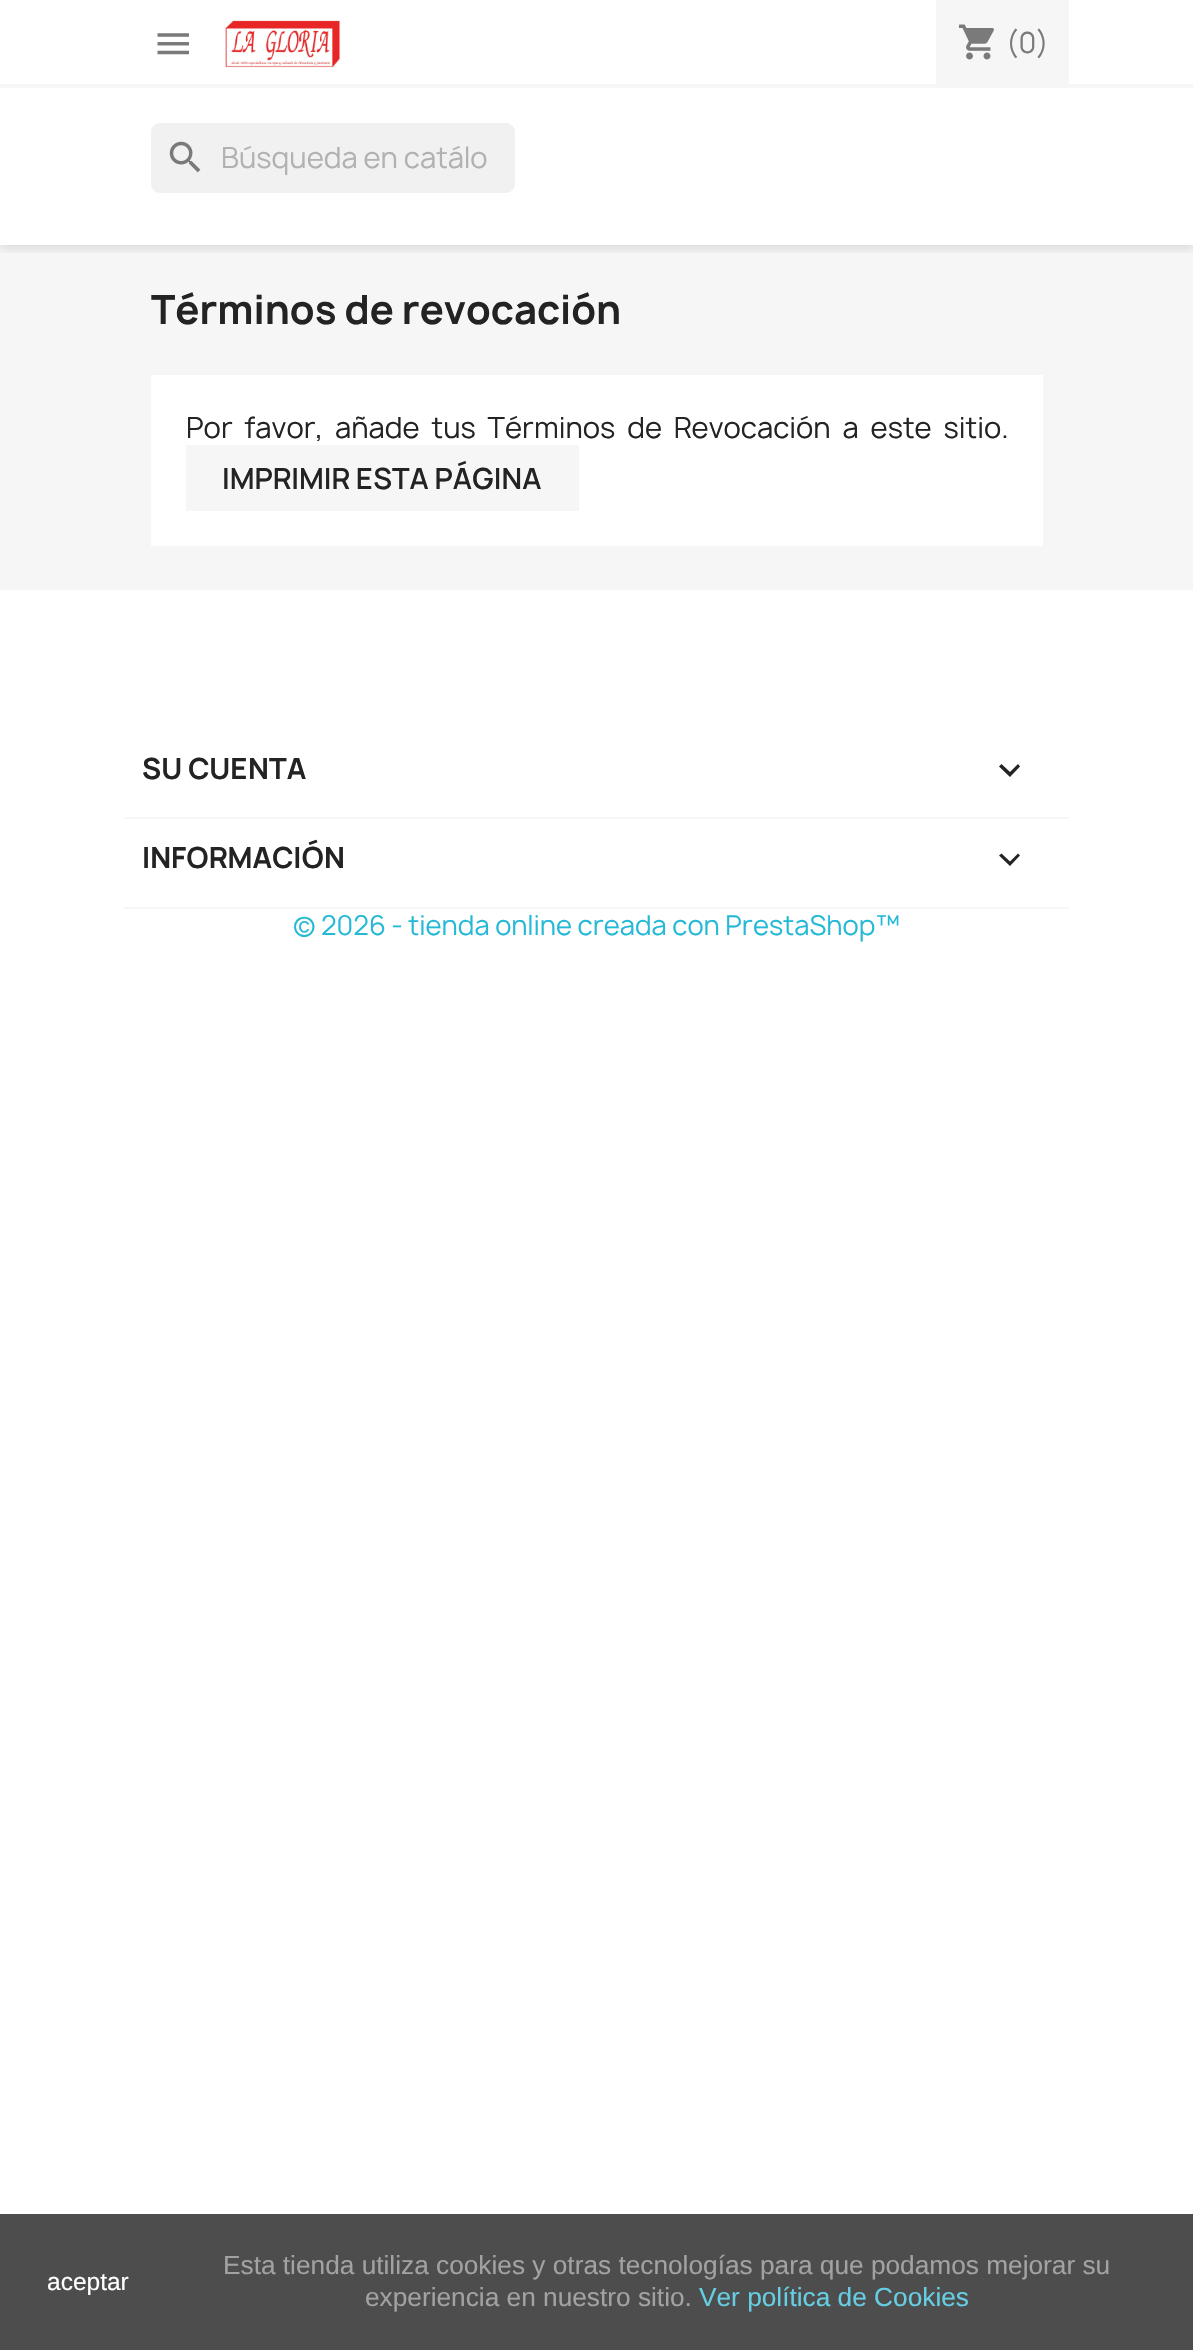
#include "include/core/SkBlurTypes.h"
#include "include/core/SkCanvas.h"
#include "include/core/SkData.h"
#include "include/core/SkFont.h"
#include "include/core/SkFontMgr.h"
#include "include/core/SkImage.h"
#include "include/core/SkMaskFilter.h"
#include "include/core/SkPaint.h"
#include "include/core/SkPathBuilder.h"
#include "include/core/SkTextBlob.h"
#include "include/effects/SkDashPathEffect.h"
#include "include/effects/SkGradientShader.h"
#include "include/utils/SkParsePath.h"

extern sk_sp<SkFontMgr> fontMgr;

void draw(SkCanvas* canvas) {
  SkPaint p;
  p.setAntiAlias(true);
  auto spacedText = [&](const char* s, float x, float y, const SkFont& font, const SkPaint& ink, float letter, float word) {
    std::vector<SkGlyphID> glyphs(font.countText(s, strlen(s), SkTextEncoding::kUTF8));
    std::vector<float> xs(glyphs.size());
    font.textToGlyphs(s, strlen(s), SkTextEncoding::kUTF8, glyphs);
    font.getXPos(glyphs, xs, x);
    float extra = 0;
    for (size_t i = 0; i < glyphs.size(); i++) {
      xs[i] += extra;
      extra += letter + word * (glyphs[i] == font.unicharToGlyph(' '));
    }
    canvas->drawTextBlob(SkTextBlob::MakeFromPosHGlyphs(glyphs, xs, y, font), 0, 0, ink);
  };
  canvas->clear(SK_ColorWHITE);
  p.setColor(SkColorSetRGB(246, 246, 246));
  canvas->drawRect(SkRect::MakeLTRB(0, 245, 1193, 590), p);
  canvas->save();
  canvas->clipRect(SkRect::MakeLTRB(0, 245, 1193, 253));
  p.setColor(SkColorSetARGB(28, 0, 0, 0));
  p.setMaskFilter(SkMaskFilter::MakeBlur(kNormal_SkBlurStyle, 4.5f));
  canvas->drawRect(SkRect::MakeLTRB(0, 4, 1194, 249), p);
  p.setMaskFilter(nullptr);
  canvas->restore();
  p.setColor(SkColorSetRGB(246, 246, 246));
  canvas->drawRect(SkRect::MakeLTRB(0, 84, 1193, 88), p);
  canvas->drawImageRect(SkImages::DeferredFromEncodedData(SkData::MakeFromFileName("images/1.png")), SkRect::MakeLTRB(157, 33, 189, 55), SkSamplingOptions());
  canvas->drawImageRect(SkImages::DeferredFromEncodedData(SkData::MakeFromFileName("images/2.png")), SkRect::MakeLTRB(225, 20, 340, 68), SkSamplingOptions());
  canvas->drawRect(SkRect::MakeLTRB(936, 0, 1069, 84), p);
  canvas->drawImageRect(SkImages::DeferredFromEncodedData(SkData::MakeFromFileName("images/3.png")), SkRect::MakeLTRB(959, 24, 994, 60), SkSamplingOptions());
  p.setColor(SkColorSetRGB(241, 241, 241));
  canvas->drawRoundRect(SkRect::MakeLTRB(151, 123, 515, 193), 9, 9, p);
  canvas->drawImageRect(SkImages::DeferredFromEncodedData(SkData::MakeFromFileName("images/4.png")), SkRect::MakeLTRB(169, 141, 201, 173), SkSamplingOptions());
  p.setColor(SK_ColorWHITE);
  canvas->drawRect(SkRect::MakeLTRB(151, 375, 1043, 546), p);
  p.setColor(SkColorSetRGB(246, 246, 246));
  canvas->drawRect(SkRect::MakeLTRB(186, 445, 579, 511), p);
  canvas->drawRect(SkRect::MakeLTRB(124, 817, 1069, 819), p);
  p.setColor(SkColorSetRGB(35, 35, 35));
  canvas->drawPath(SkPathBuilder().moveTo(1001.5f, 764).lineTo(1010, 772).lineTo(1018, 764).lineTo(1020, 766.5f).lineTo(1010, 777).lineTo(999, 766.5f).close().detach(), p);
  p.setColor(SkColorSetRGB(246, 246, 246));
  canvas->drawRect(SkRect::MakeLTRB(124, 907, 1069, 909), p);
  p.setColor(SkColorSetRGB(35, 35, 35));
  canvas->drawPath(SkPathBuilder().moveTo(1001.5f, 853.5f).lineTo(1010, 861.5f).lineTo(1018, 853.5f).lineTo(1020, 855.5f).lineTo(1010, 866).lineTo(999, 855.5f).close().detach(), p);
  p.setColor(SkColorSetRGB(77, 77, 77));
  canvas->drawRect(SkRect::MakeLTRB(0, 2214, 1193, 2350), p);
  SkFont font1(fontMgr->matchFamilyStyle("Manrope", SkFontStyle::Normal()), 28);
  font1.setSubpixel(true);
  p.setColor(SkColorSetRGB(122, 122, 122));
  canvas->drawString("(0)", 1006, 53, font1, p);
  p.setColor(SkColorSetRGB(177, 177, 177));
  canvas->drawString("Búsqueda en catálo", 221, 168, font1, p);
  SkFont font2(fontMgr->matchFamilyStyle("Manrope", SkFontStyle::Bold()), 38.5f);
  font2.setSubpixel(true);
  p.setColor(SkColorSetRGB(35, 35, 35));
  canvas->drawString("Términos de revocación", 151, 324, font2, p);
  spacedText("Por favor, añade tus Términos de Revocación a este sitio.", 186, 438, font1, p, 0, 6);
  SkFont font3(fontMgr->matchFamilyStyle("Manrope", SkFontStyle(600, SkFontStyle::kNormal_Width, SkFontStyle::kUpright_Slant)), 28);
  font3.setSubpixel(true);
  canvas->drawString("IMPRIMIR ESTA PÁGINA", 222, 489, font3, p);
  SkFont font4(fontMgr->matchFamilyStyle("Manrope", SkFontStyle::Bold()), 28);
  font4.setSubpixel(true);
  canvas->drawString("SU CUENTA", 142, 779, font4, p);
  canvas->drawString("INFORMACIÓN", 142, 868, font4, p);
  SkFont font5(fontMgr->matchFamilyStyle("Liberation Sans", SkFontStyle::Normal()), 24.5f);
  font5.setSubpixel(true);
  p.setColor(SK_ColorWHITE);
  canvas->drawString("aceptar", 47, 2290, font5, p);
  SkFont font6(fontMgr->matchFamilyStyle("Liberation Sans", SkFontStyle::Normal()), 26.25f);
  font6.setSubpixel(true);
  p.setColor(SkColorSetRGB(162, 162, 162));
  canvas->drawString("Esta tienda utiliza cookies y otras tecnologías para que podamos mejorar su", 223, 2274, font6, p);
  canvas->drawString("experiencia en nuestro sitio.", 365, 2306, font6, p);
  p.setColor(SkColorSetRGB(102, 206, 227));
  canvas->drawString("Ver política de Cookies", 699, 2306, font6, p);
  SkFont font7(fontMgr->matchFamilyStyle("Manrope", SkFontStyle::Normal()), 26.25f);
  font7.setSubpixel(true);
  p.setColor(SkColorSetRGB(36, 185, 215));
  canvas->drawString("© 2026 - tienda online creada con PrestaShop™", 293, 935, font7, p);
}
